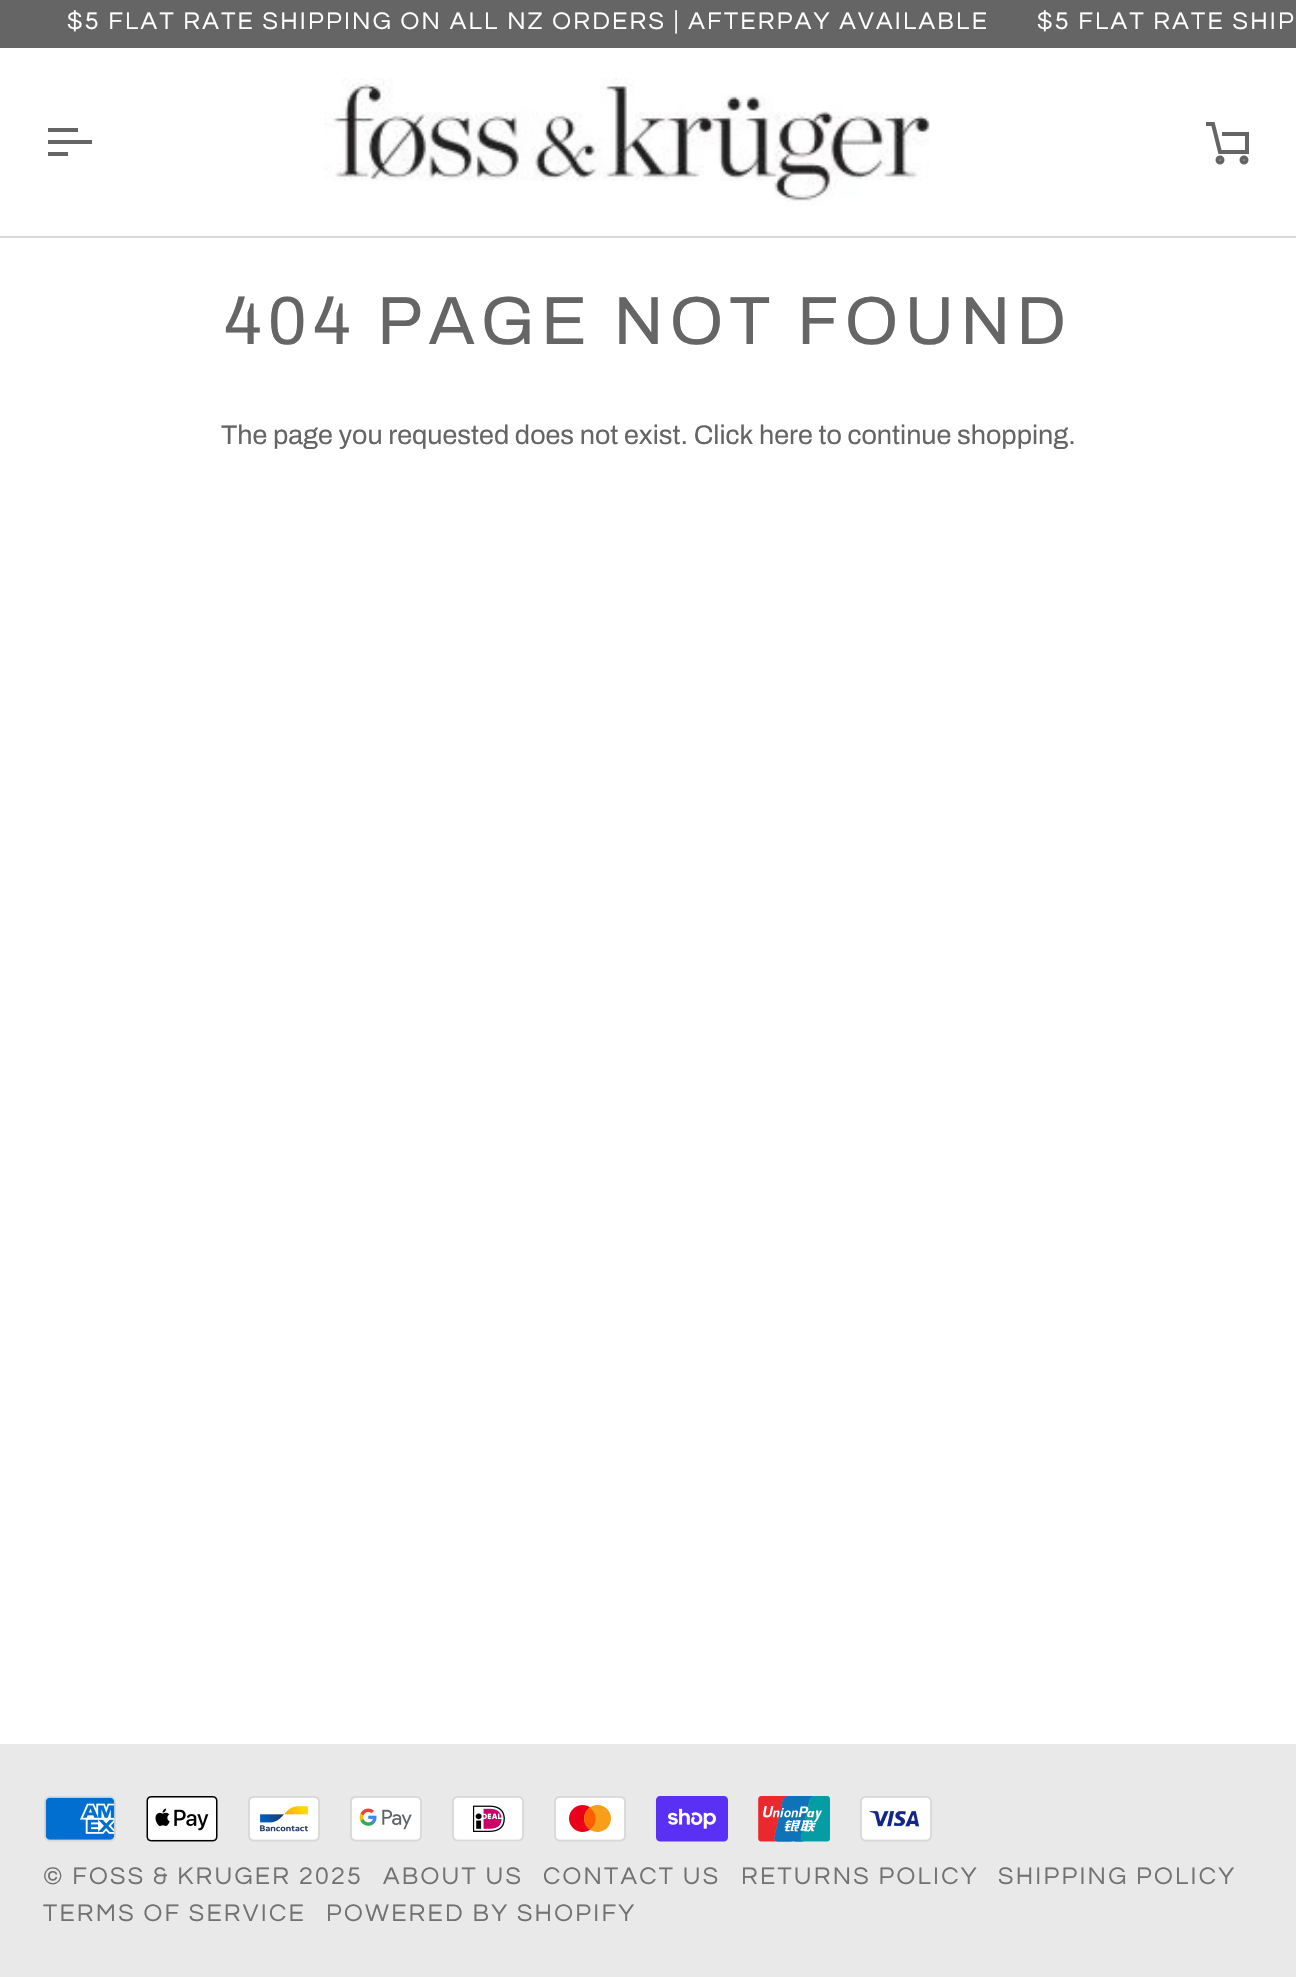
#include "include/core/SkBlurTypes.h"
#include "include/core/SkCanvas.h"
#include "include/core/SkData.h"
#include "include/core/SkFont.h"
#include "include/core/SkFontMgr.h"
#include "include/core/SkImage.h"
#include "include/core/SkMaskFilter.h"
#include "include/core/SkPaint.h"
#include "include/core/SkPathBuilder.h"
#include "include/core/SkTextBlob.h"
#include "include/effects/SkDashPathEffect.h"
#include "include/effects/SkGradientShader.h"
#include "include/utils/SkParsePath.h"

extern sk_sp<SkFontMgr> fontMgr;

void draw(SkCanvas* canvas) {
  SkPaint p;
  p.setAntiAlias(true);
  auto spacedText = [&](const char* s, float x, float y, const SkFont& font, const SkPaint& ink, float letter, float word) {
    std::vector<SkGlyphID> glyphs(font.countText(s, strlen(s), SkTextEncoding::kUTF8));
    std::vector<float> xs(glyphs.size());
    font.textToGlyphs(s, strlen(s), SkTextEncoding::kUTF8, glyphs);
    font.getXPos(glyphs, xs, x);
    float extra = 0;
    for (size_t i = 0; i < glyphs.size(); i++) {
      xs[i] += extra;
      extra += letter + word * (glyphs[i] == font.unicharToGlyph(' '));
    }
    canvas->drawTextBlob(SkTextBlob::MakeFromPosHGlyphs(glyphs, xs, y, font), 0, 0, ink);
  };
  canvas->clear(SK_ColorWHITE);
  p.setColor(SkColorSetRGB(101, 101, 101));
  canvas->drawRect(SkRect::MakeLTRB(0, 0, 1296, 48), p);
  p.setColor(SkColorSetRGB(215, 215, 215));
  canvas->drawRect(SkRect::MakeLTRB(0, 236, 1296, 238), p);
  p.setStyle(SkPaint::kStroke_Style);
  p.setStrokeWidth(4);
  p.setStrokeCap(SkPaint::kSquare_Cap);
  p.setColor(SkColorSetRGB(101, 101, 101));
  canvas->drawPath(SkPathBuilder().moveTo(76, 130).lineTo(50, 130).moveTo(90, 142).lineTo(50, 142).moveTo(66, 154).lineTo(50, 154).detach(), p);
  canvas->drawImageRect(SkImages::DeferredFromEncodedData(SkData::MakeFromFileName("images/1.png")), SkRect::MakeLTRB(324, 78, 930, 206), SkSamplingOptions());
  p.setStrokeCap(SkPaint::kButt_Cap);
  canvas->drawPath(SkPathBuilder().moveTo(1206, 124).lineTo(1213, 124).lineTo(1220, 152).lineTo(1247, 152).lineTo(1247, 134).lineTo(1222, 134).detach(), p);
  canvas->drawCircle(1220, 160, 2.5f, p);
  canvas->drawCircle(1244, 160, 2.5f, p);
  p.setStyle(SkPaint::kFill_Style);
  p.setColor(SkColorSetRGB(233, 233, 233));
  canvas->drawRect(SkRect::MakeLTRB(0, 1744, 1296, 1977), p);
  canvas->drawImageRect(SkImages::DeferredFromEncodedData(SkData::MakeFromFileName("images/2.png")), SkRect::MakeLTRB(44, 1796, 116, 1842), SkSamplingOptions());
  canvas->drawImageRect(SkImages::DeferredFromEncodedData(SkData::MakeFromFileName("images/3.png")), SkRect::MakeLTRB(146, 1796, 218, 1842), SkSamplingOptions());
  canvas->drawImageRect(SkImages::DeferredFromEncodedData(SkData::MakeFromFileName("images/4.png")), SkRect::MakeLTRB(248, 1796, 320, 1842), SkSamplingOptions());
  canvas->drawImageRect(SkImages::DeferredFromEncodedData(SkData::MakeFromFileName("images/5.png")), SkRect::MakeLTRB(350, 1796, 422, 1842), SkSamplingOptions());
  canvas->drawImageRect(SkImages::DeferredFromEncodedData(SkData::MakeFromFileName("images/6.png")), SkRect::MakeLTRB(452, 1796, 524, 1841), SkSamplingOptions());
  canvas->drawImageRect(SkImages::DeferredFromEncodedData(SkData::MakeFromFileName("images/7.png")), SkRect::MakeLTRB(554, 1796, 626, 1842), SkSamplingOptions());
  canvas->drawImageRect(SkImages::DeferredFromEncodedData(SkData::MakeFromFileName("images/8.png")), SkRect::MakeLTRB(656, 1796, 728, 1842), SkSamplingOptions());
  canvas->drawImageRect(SkImages::DeferredFromEncodedData(SkData::MakeFromFileName("images/9.png")), SkRect::MakeLTRB(758, 1796, 830, 1842), SkSamplingOptions());
  canvas->drawImageRect(SkImages::DeferredFromEncodedData(SkData::MakeFromFileName("images/10.png")), SkRect::MakeLTRB(860, 1796, 932, 1842), SkSamplingOptions());
  SkFont font1(fontMgr->matchFamilyStyle("Questrial", SkFontStyle::Normal()), 25);
  font1.setSubpixel(true);
  p.setColor(SK_ColorWHITE);
  spacedText("$5 FLAT RATE SHIPPING ON ALL NZ ORDERS | AFTERPAY AVAILABLE", 67, 29, font1, p, 2.25f, 0);
  spacedText("$5 FLAT RATE SHIP", 1037, 29, font1, p, 2.25f, 0);
  SkFont font2(fontMgr->matchFamilyStyle("Archivo", SkFontStyle::Normal()), 68);
  font2.setSubpixel(true);
  p.setColor(SkColorSetRGB(101, 101, 101));
  spacedText("404 PAGE NOT FOUND", 224, 344, font2, p, 6.1f, 0);
  SkFont font3(fontMgr->matchFamilyStyle("Archivo", SkFontStyle::Normal()), 27);
  font3.setSubpixel(true);
  canvas->drawString("The page you requested does not exist. Click here to continue shopping.", 221, 444, font3, p);
  p.setColor(SkColorSetRGB(114, 114, 114));
  spacedText("© FOSS & KRUGER", 43, 1884, font1, p, 2.25f, 0);
  spacedText("2025", 299, 1884, font1, p, 2.25f, 0);
  spacedText("ABOUT US", 383, 1884, font1, p, 2.25f, 0);
  spacedText("CONTACT US", 543, 1884, font1, p, 2.25f, 0);
  spacedText("RETURNS POLICY", 741, 1884, font1, p, 2.25f, 0);
  spacedText("SHIPPING POLICY", 998, 1884, font1, p, 2.25f, 0);
  spacedText("TERMS OF SERVICE", 43, 1921, font1, p, 2.25f, 0);
  spacedText("POWERED BY SHOPIFY", 326, 1921, font1, p, 2.25f, 0);
}
